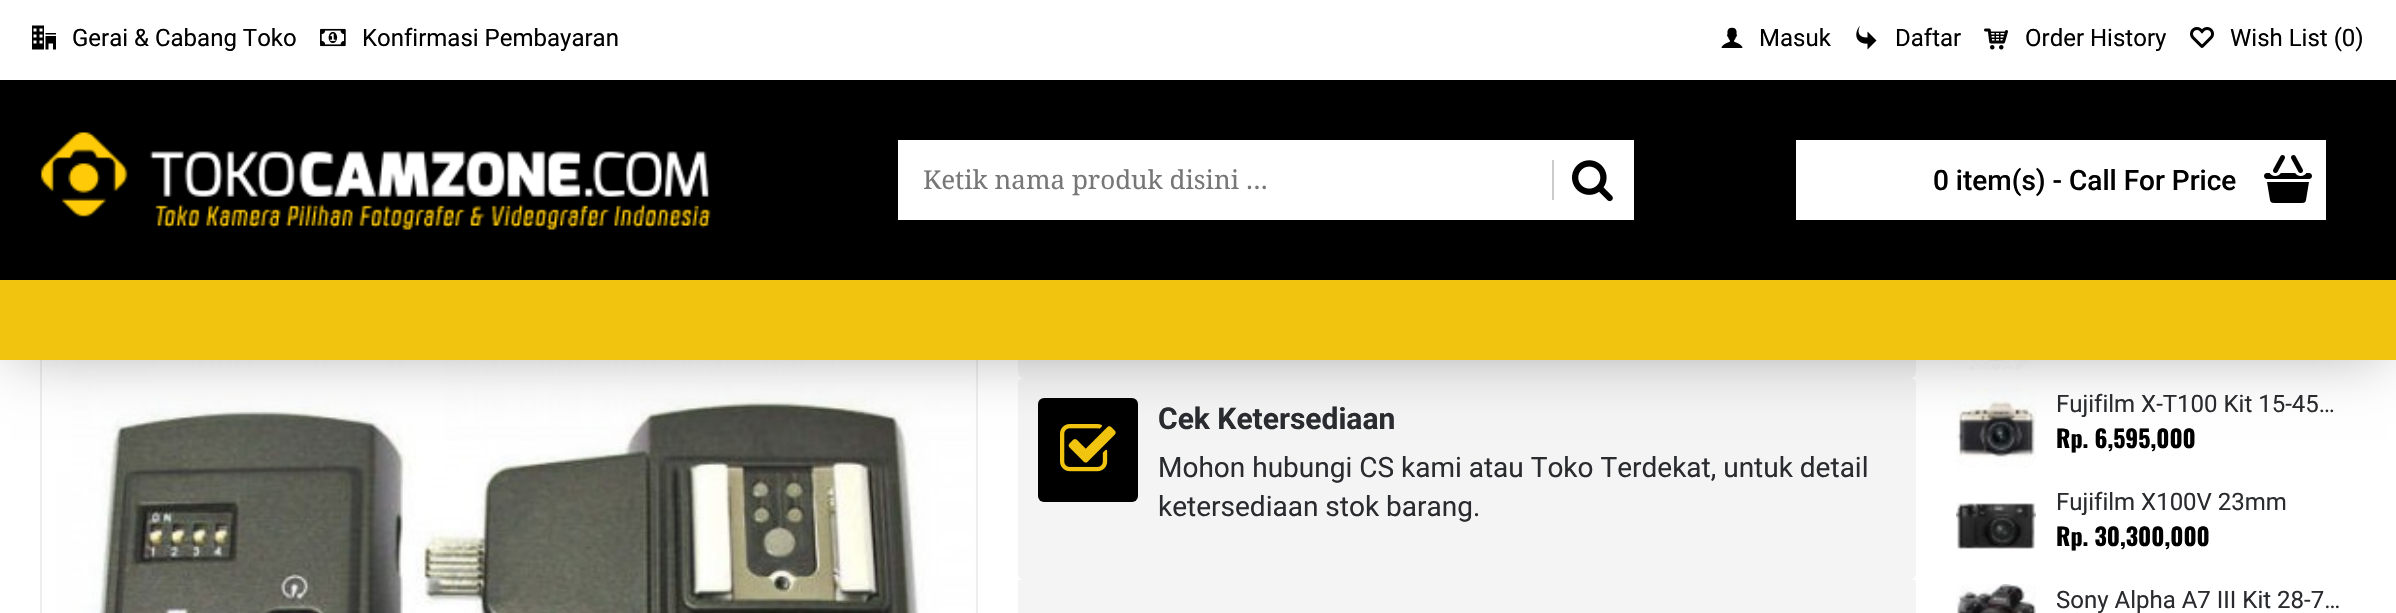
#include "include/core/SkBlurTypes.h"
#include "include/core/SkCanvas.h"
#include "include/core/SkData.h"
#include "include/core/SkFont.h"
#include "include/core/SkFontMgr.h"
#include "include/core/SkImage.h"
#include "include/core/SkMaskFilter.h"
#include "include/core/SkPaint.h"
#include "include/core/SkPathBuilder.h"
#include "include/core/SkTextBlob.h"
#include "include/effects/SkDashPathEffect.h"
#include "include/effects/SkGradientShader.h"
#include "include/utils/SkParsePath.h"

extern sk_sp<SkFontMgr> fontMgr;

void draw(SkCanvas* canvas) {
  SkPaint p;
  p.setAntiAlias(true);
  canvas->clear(SK_ColorWHITE);
  p.setStyle(SkPaint::kStroke_Style);
  p.setStrokeWidth(2);
  p.setColor(SkColorSetRGB(238, 238, 238));
  canvas->drawRect(SkRect::MakeLTRB(41, 217, 977, 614), p);
  canvas->drawImageRect(SkImages::DeferredFromEncodedData(SkData::MakeFromFileName("images/10.png")), SkRect::MakeLTRB(42, 360, 976, 613), SkSamplingOptions());
  p.setStyle(SkPaint::kFill_Style);
  p.setColor(SkColorSetRGB(244, 244, 244));
  canvas->drawRoundRect(SkRect::MakeLTRB(1018, 216, 1916, 378), 6, 6, p);
  canvas->drawRoundRect(SkRect::MakeLTRB(1018, 378, 1916, 580), 6, 6, p);
  p.setColor(SK_ColorBLACK);
  canvas->drawRoundRect(SkRect::MakeLTRB(1038, 398, 1138, 502), 6, 6, p);
  canvas->drawImageRect(SkImages::DeferredFromEncodedData(SkData::MakeFromFileName("images/11.png")), SkRect::MakeLTRB(1060, 424, 1116, 472), SkSamplingOptions());
  canvas->drawImageRect(SkImages::DeferredFromEncodedData(SkData::MakeFromFileName("images/12.png")), SkRect::MakeLTRB(1956, 360, 2031, 370), SkSamplingOptions());
  canvas->drawImageRect(SkImages::DeferredFromEncodedData(SkData::MakeFromFileName("images/13.png")), SkRect::MakeLTRB(1956, 388, 2036, 468), SkSamplingOptions());
  p.setColor(SkColorSetARGB(84, 0, 0, 0));
  p.setMaskFilter(SkMaskFilter::MakeBlur(kNormal_SkBlurStyle, 30));
  canvas->drawRect(SkRect::MakeLTRB(10, 12, 2386, 352), p);
  p.setMaskFilter(nullptr);
  p.setColor(SK_ColorBLACK);
  canvas->drawRect(SkRect::MakeLTRB(0, 80, 2396, 280), p);
  p.setColor(SK_ColorWHITE);
  canvas->drawRect(SkRect::MakeLTRB(0, 0, 2396, 80), p);
  canvas->drawImageRect(SkImages::DeferredFromEncodedData(SkData::MakeFromFileName("images/1.png")), SkRect::MakeLTRB(32, 25, 56, 50), SkSamplingOptions());
  canvas->drawImageRect(SkImages::DeferredFromEncodedData(SkData::MakeFromFileName("images/2.png")), SkRect::MakeLTRB(320, 28, 346, 47), SkSamplingOptions());
  canvas->drawImageRect(SkImages::DeferredFromEncodedData(SkData::MakeFromFileName("images/3.png")), SkRect::MakeLTRB(1721, 27, 1743, 48), SkSamplingOptions());
  canvas->drawImageRect(SkImages::DeferredFromEncodedData(SkData::MakeFromFileName("images/4.png")), SkRect::MakeLTRB(1856, 25, 1877, 50), SkSamplingOptions());
  canvas->drawImageRect(SkImages::DeferredFromEncodedData(SkData::MakeFromFileName("images/5.png")), SkRect::MakeLTRB(1984, 28, 2008, 50), SkSamplingOptions());
  canvas->drawImageRect(SkImages::DeferredFromEncodedData(SkData::MakeFromFileName("images/6.png")), SkRect::MakeLTRB(2190, 27, 2214, 48), SkSamplingOptions());
  canvas->drawImageRect(SkImages::DeferredFromEncodedData(SkData::MakeFromFileName("images/7.png")), SkRect::MakeLTRB(40, 132, 711, 230), SkSamplingOptions());
  canvas->drawRect(SkRect::MakeLTRB(898, 140, 1634, 220), p);
  p.setColor(SkColorSetRGB(204, 204, 204));
  canvas->drawRect(SkRect::MakeLTRB(1552, 160, 1554, 200), p);
  canvas->drawImageRect(SkImages::DeferredFromEncodedData(SkData::MakeFromFileName("images/8.png")), SkRect::MakeLTRB(1572, 160, 1613, 202), SkSamplingOptions());
  p.setColor(SK_ColorWHITE);
  canvas->drawRect(SkRect::MakeLTRB(1796, 140, 2326, 220), p);
  canvas->drawImageRect(SkImages::DeferredFromEncodedData(SkData::MakeFromFileName("images/9.png")), SkRect::MakeLTRB(2264, 155, 2312, 203), SkSamplingOptions());
  p.setColor(SkColorSetRGB(241, 196, 15));
  canvas->drawRect(SkRect::MakeLTRB(0, 280, 2396, 360), p);
  p.setColor(SkColorSetRGB(244, 244, 244));
  canvas->drawRect(SkRect::MakeLTRB(1018, 580, 1916, 613), p);
  canvas->drawImageRect(SkImages::DeferredFromEncodedData(SkData::MakeFromFileName("images/14.png")), SkRect::MakeLTRB(1956, 503, 2036, 550), SkSamplingOptions());
  canvas->drawImageRect(SkImages::DeferredFromEncodedData(SkData::MakeFromFileName("images/15.png")), SkRect::MakeLTRB(1956, 584, 2036, 613), SkSamplingOptions());
  SkFont font1(fontMgr->matchFamilyStyle("Roboto", SkFontStyle::Normal()), 24);
  font1.setSubpixel(true);
  p.setColor(SK_ColorBLACK);
  canvas->drawString("Gerai & Cabang Toko", 72, 46, font1, p);
  canvas->drawString("Konfirmasi Pembayaran", 362, 46, font1, p);
  canvas->drawString("Masuk", 1759, 46, font1, p);
  canvas->drawString("Daftar", 1895, 46, font1, p);
  canvas->drawString("Order History", 2025, 46, font1, p);
  canvas->drawString("Wish List (0)", 2230, 46, font1, p);
  SkFont font2(fontMgr->matchFamilyStyle("Droid Serif", SkFontStyle::Normal()), 26);
  font2.setSubpixel(true);
  p.setColor(SkColorSetRGB(119, 119, 119));
  canvas->drawString("Ketik nama produk disini ...", 923, 189, font2, p);
  SkFont font3(fontMgr->matchFamilyStyle("Roboto", SkFontStyle(500, SkFontStyle::kNormal_Width, SkFontStyle::kUpright_Slant)), 28);
  font3.setSubpixel(true);
  p.setColor(SK_ColorBLACK);
  canvas->drawString("0 item(s) - Call For Price", 1933, 190, font3, p);
  SkFont font4(fontMgr->matchFamilyStyle("Roboto", SkFontStyle::Bold()), 30);
  font4.setSubpixel(true);
  p.setColor(SkColorSetRGB(42, 43, 46));
  canvas->drawString("Cek Ketersediaan", 1158, 429, font4, p);
  SkFont font5(fontMgr->matchFamilyStyle("Roboto", SkFontStyle::Normal()), 28);
  font5.setSubpixel(true);
  canvas->drawString("Mohon hubungi CS kami atau Toko Terdekat, untuk detail", 1158, 477, font5, p);
  canvas->drawString("ketersediaan stok barang.", 1158, 516, font5, p);
  canvas->drawString("Fujifilm X-T100 Kit 15-45…", 2056, 412, font1, p);
  SkFont font6(fontMgr->matchFamilyStyle("Oswald", SkFontStyle::Bold()), 24);
  font6.setSubpixel(true);
  p.setColor(SK_ColorBLACK);
  canvas->drawString("Rp. 6,595,000", 2056, 448, font6, p);
  p.setColor(SkColorSetRGB(42, 43, 46));
  canvas->drawString("Fujifilm X100V 23mm", 2056, 510, font1, p);
  p.setColor(SK_ColorBLACK);
  canvas->drawString("Rp. 30,300,000", 2056, 546, font6, p);
  p.setColor(SkColorSetRGB(42, 43, 46));
  canvas->drawString("Sony Alpha A7 III Kit 28-7…", 2056, 608, font1, p);
}
